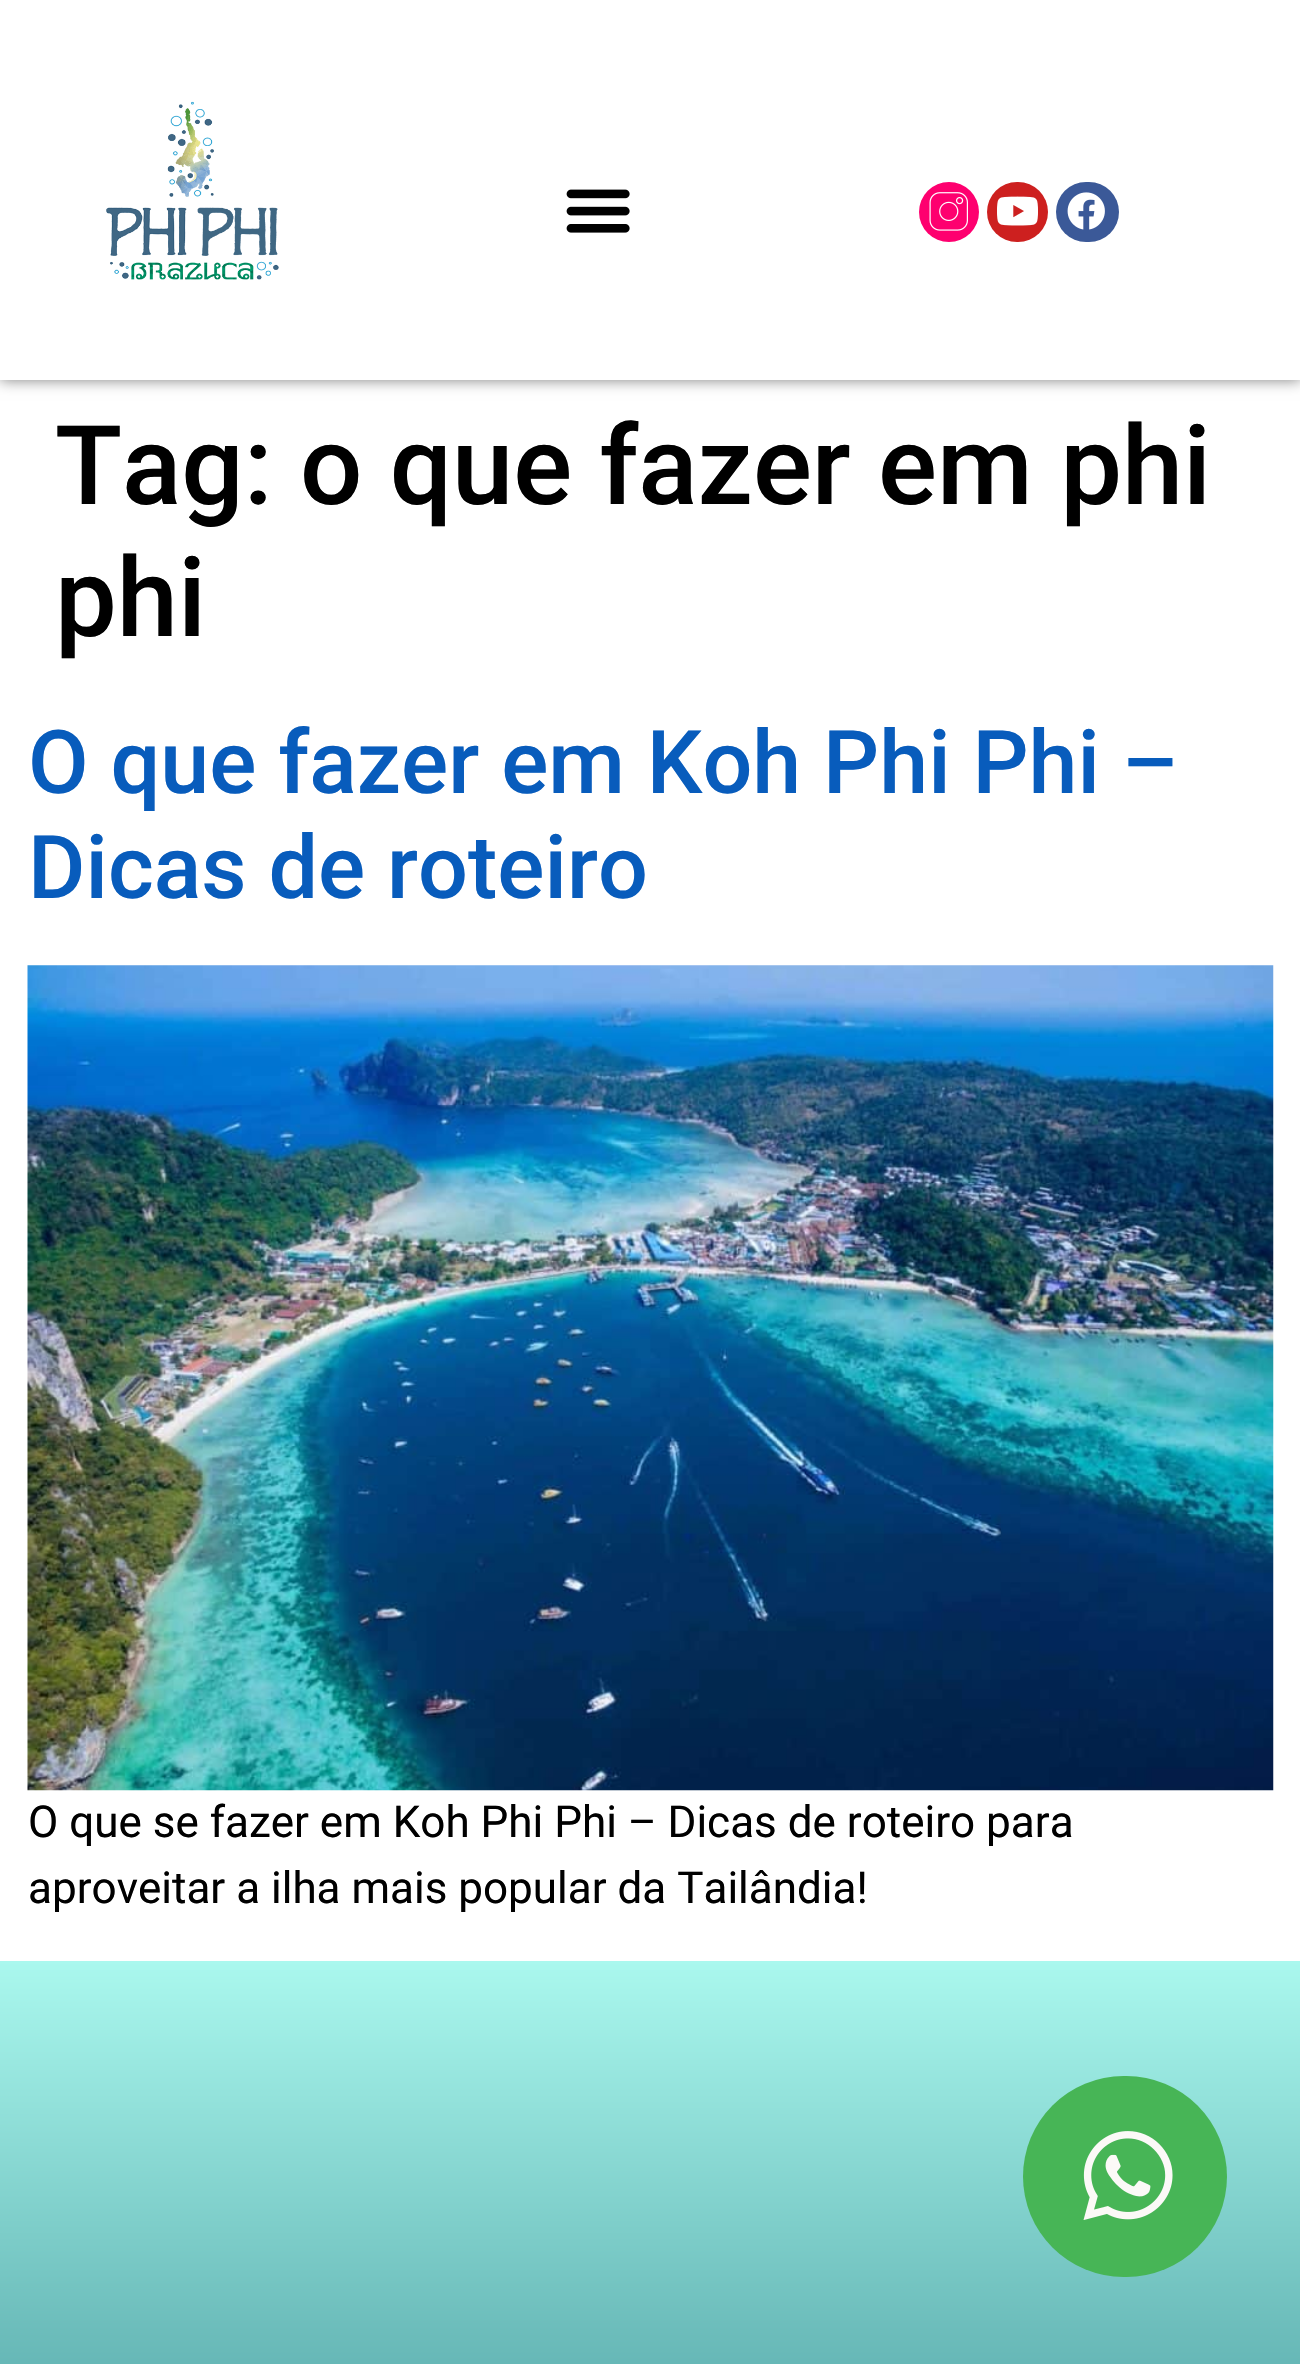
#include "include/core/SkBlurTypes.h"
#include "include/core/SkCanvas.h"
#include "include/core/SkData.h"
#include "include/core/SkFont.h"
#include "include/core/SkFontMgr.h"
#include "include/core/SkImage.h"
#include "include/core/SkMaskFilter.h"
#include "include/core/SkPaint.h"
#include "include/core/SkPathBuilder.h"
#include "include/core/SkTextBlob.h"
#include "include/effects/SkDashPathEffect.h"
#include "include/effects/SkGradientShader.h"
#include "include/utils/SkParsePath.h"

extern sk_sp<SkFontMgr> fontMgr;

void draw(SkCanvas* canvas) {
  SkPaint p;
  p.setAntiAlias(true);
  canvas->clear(SK_ColorWHITE);
  p.setColor(SkColorSetARGB(128, 0, 0, 0));
  p.setMaskFilter(SkMaskFilter::MakeBlur(kNormal_SkBlurStyle, 7));
  canvas->drawRect(SkRect::MakeLTRB(0, 0, 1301, 380), p);
  p.setMaskFilter(nullptr);
  p.setColor(SK_ColorWHITE);
  canvas->drawRect(SkRect::MakeLTRB(0, 0, 1300, 380), p);
  canvas->drawImageRect(SkImages::DeferredFromEncodedData(SkData::MakeFromFileName("images/1.png")), SkRect::MakeLTRB(106, 101, 279, 280), SkSamplingOptions());
  canvas->drawImageRect(SkImages::DeferredFromEncodedData(SkData::MakeFromFileName("images/2.png")), SkRect::MakeLTRB(566, 189, 630, 233), SkSamplingOptions());
  p.setColor(SkColorSetRGB(254, 0, 111));
  canvas->drawCircle(949, 212, 30, p);
  canvas->drawImageRect(SkImages::DeferredFromEncodedData(SkData::MakeFromFileName("images/3.png")), SkRect::MakeLTRB(929, 192, 968, 231), SkSamplingOptions());
  p.setColor(SkColorSetRGB(205, 32, 31));
  canvas->drawRoundRect(SkRect::MakeLTRB(987, 182, 1048, 242), 30, 30, p);
  canvas->drawImageRect(SkImages::DeferredFromEncodedData(SkData::MakeFromFileName("images/4.png")), SkRect::MakeLTRB(997, 196, 1038, 226), SkSamplingOptions());
  p.setColor(SkColorSetRGB(59, 89, 152));
  canvas->drawRoundRect(SkRect::MakeLTRB(1056, 182, 1119, 242), 30, 30, p);
  canvas->drawImageRect(SkImages::DeferredFromEncodedData(SkData::MakeFromFileName("images/5.png")), SkRect::MakeLTRB(1067, 192, 1105, 230), SkSamplingOptions());
  canvas->drawImageRect(SkImages::DeferredFromEncodedData(SkData::MakeFromFileName("images/6.png")), SkRect::MakeLTRB(27, 965, 1274, 1791), SkSamplingOptions());
  {
    const SkColor colors[] = {SkColorSetRGB(11, 96, 107), SkColorSetRGB(170, 248, 238)};
    const float stops[] = {0, 1};
    const SkPoint ends[] = {{650, 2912}, {650, 1961}};
    p.setShader(SkGradientShader::MakeLinear(ends, colors, stops, 2, SkTileMode::kClamp));
    p.setAlpha(255);
  }
  canvas->drawRect(SkRect::MakeLTRB(0, 1961, 1300, 2364), p);
  p.setShader(nullptr);
  p.setColor(SkColorSetRGB(71, 181, 86));
  canvas->drawRoundRect(SkRect::MakeLTRB(1023, 2076, 1227, 2277), 100.5f, 100.5f, p);
  canvas->drawImageRect(SkImages::DeferredFromEncodedData(SkData::MakeFromFileName("images/7.png")), SkRect::MakeLTRB(1083, 2131, 1173, 2220), SkSamplingOptions());
  SkFont font1(fontMgr->matchFamilyStyle("Roboto", SkFontStyle(500, SkFontStyle::kNormal_Width, SkFontStyle::kUpright_Slant)), 110);
  font1.setSubpixel(true);
  p.setColor(SK_ColorBLACK);
  canvas->drawString("Tag: o que fazer em phi", 55, 504, font1, p);
  canvas->drawString("phi", 55, 636, font1, p);
  SkFont font2(fontMgr->matchFamilyStyle("Roboto", SkFontStyle(500, SkFontStyle::kNormal_Width, SkFontStyle::kUpright_Slant)), 88);
  font2.setSubpixel(true);
  p.setColor(SkColorSetRGB(8, 92, 188));
  canvas->drawString("O que fazer em Koh Phi Phi –", 28, 793, font2, p);
  canvas->drawString("Dicas de roteiro", 28, 898, font2, p);
  SkFont font3(fontMgr->matchFamilyStyle("Roboto", SkFontStyle::Normal()), 44);
  font3.setSubpixel(true);
  p.setColor(SK_ColorBLACK);
  canvas->drawString("O que se fazer em Koh Phi Phi – Dicas de roteiro para", 28, 1837, font3, p);
  canvas->drawString("aproveitar a ilha mais popular da Tailândia!", 28, 1903, font3, p);
}
